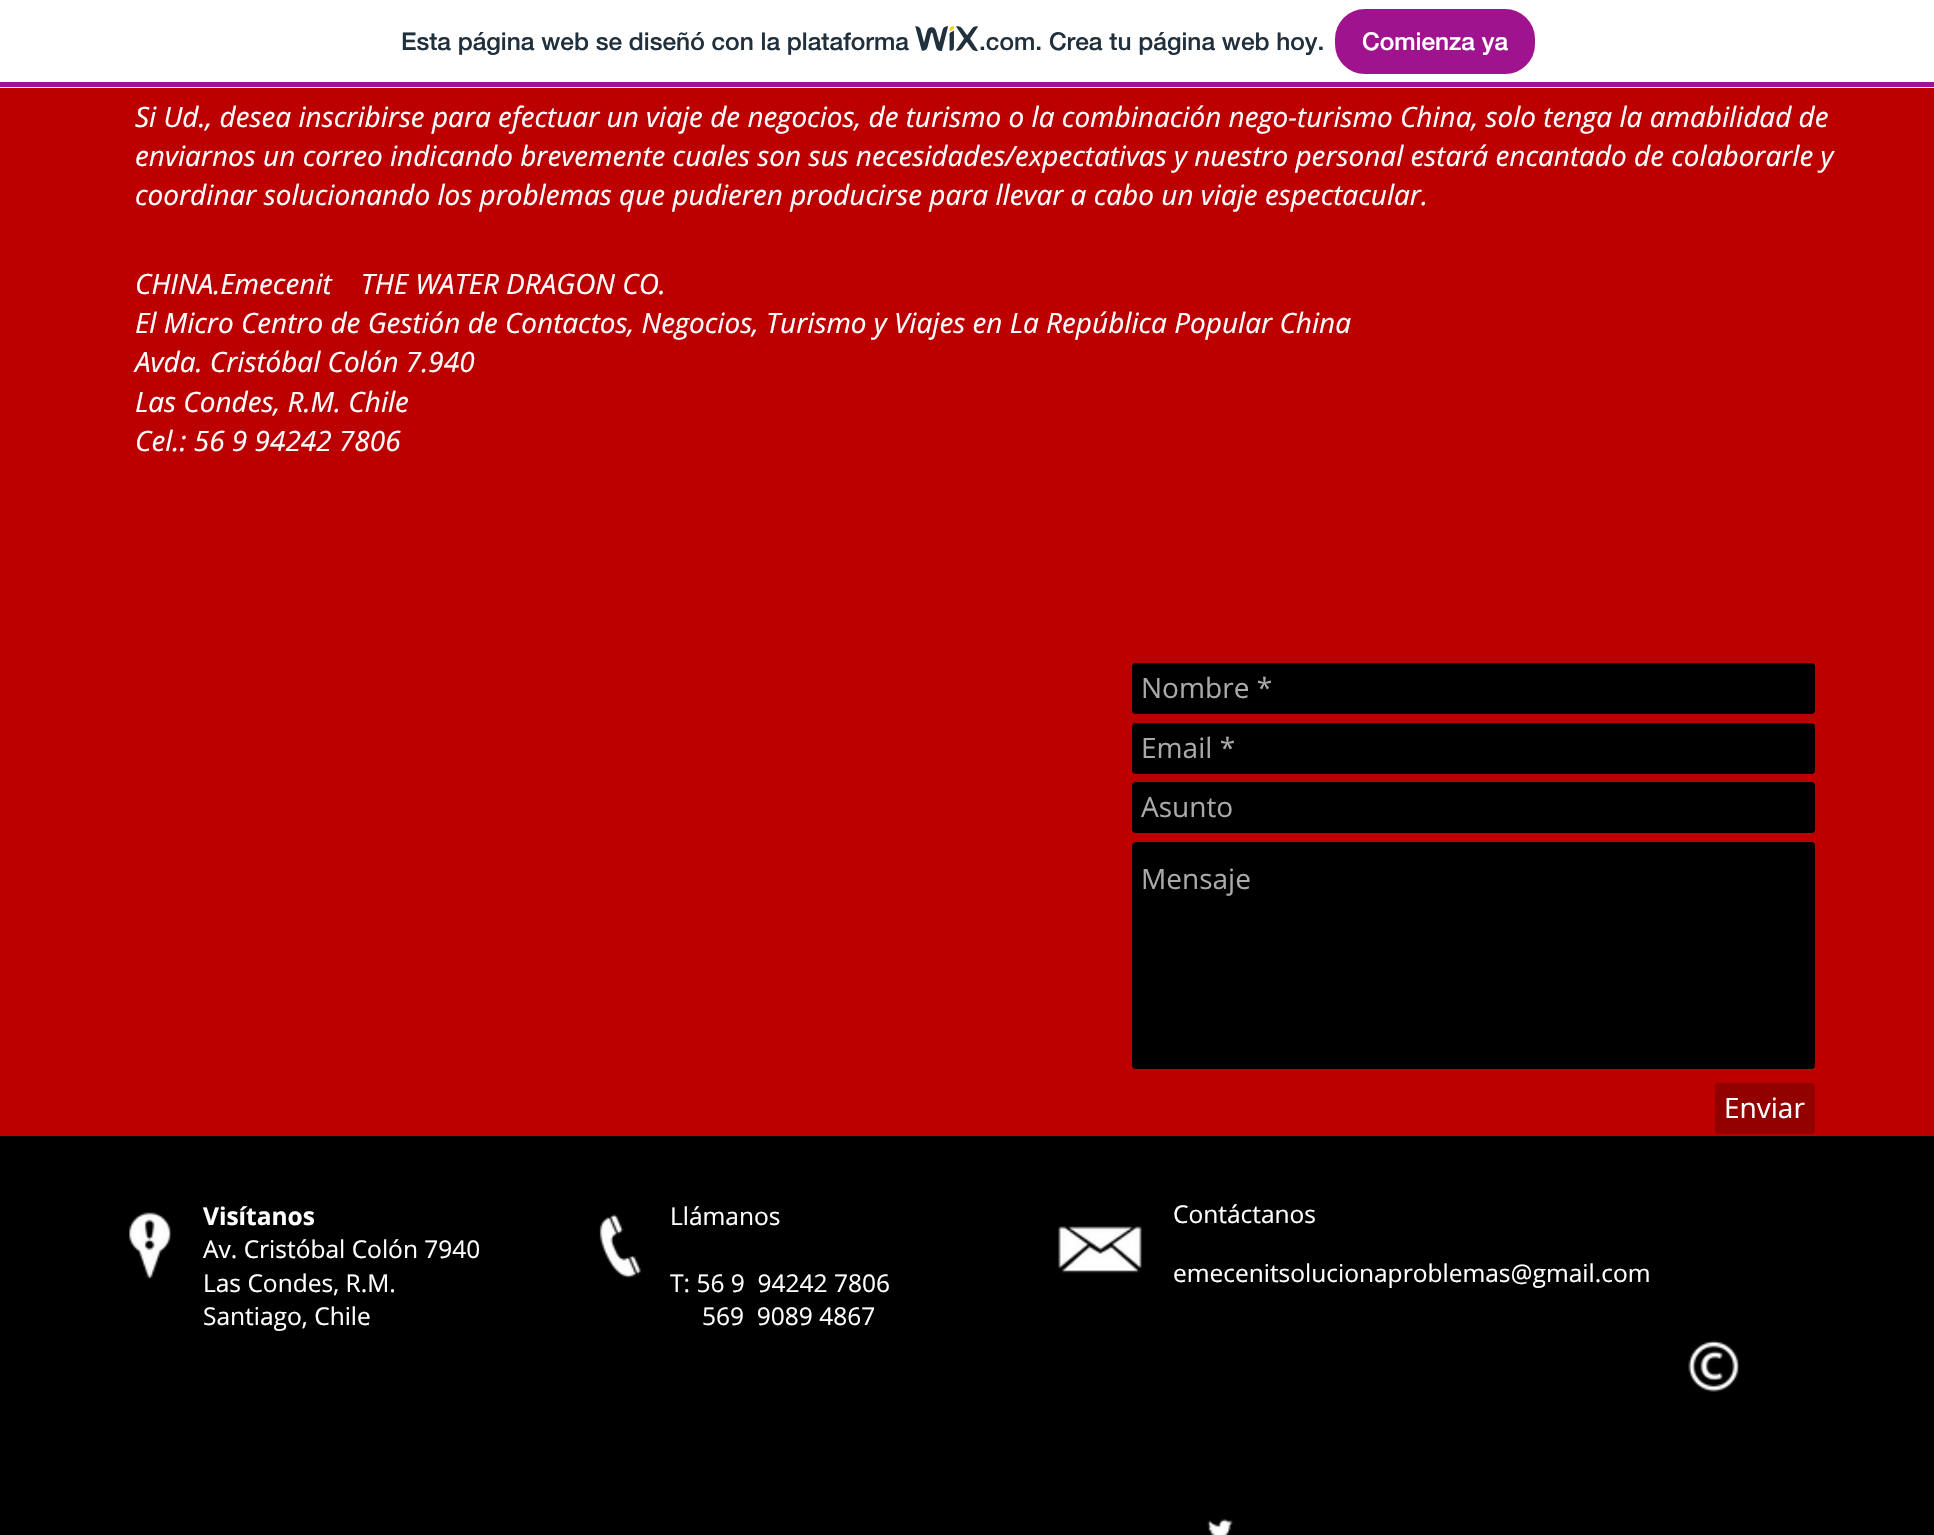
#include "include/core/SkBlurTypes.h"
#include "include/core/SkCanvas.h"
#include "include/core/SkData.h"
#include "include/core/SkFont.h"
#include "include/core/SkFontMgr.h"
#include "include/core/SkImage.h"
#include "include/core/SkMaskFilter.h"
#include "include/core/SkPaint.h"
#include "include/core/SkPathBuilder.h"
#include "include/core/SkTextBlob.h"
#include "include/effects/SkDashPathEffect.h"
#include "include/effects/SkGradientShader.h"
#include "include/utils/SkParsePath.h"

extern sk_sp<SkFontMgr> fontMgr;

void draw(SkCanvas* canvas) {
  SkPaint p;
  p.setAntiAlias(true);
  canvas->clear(SkColorSetRGB(188, 0, 0));
  p.setColor(SK_ColorWHITE);
  canvas->drawRect(SkRect::MakeLTRB(0, 0, 1934, 88), p);
  p.setColor(SkColorSetRGB(160, 19, 142));
  canvas->drawRect(SkRect::MakeLTRB(0, 82, 1934, 87), p);
  canvas->drawImageRect(SkImages::DeferredFromEncodedData(SkData::MakeFromFileName("images/1.png")), SkRect::MakeLTRB(915, 26, 978, 52), SkSamplingOptions());
  canvas->drawRoundRect(SkRect::MakeLTRB(1336, 10, 1534, 73), 29, 29, p);
  p.setStyle(SkPaint::kStroke_Style);
  p.setStrokeWidth(2);
  canvas->drawRoundRect(SkRect::MakeLTRB(1336, 10, 1534, 73), 29, 29, p);
  p.setStyle(SkPaint::kFill_Style);
  p.setColor(SK_ColorBLACK);
  canvas->drawRoundRect(SkRect::MakeLTRB(1132, 663, 1815, 714), 4, 4, p);
  canvas->drawRoundRect(SkRect::MakeLTRB(1132, 723, 1815, 774), 4, 4, p);
  canvas->drawRoundRect(SkRect::MakeLTRB(1132, 782, 1815, 833), 4, 4, p);
  canvas->drawRoundRect(SkRect::MakeLTRB(1132, 842, 1815, 1069), 4, 4, p);
  p.setColor(SkColorSetRGB(147, 0, 0));
  canvas->drawRoundRect(SkRect::MakeLTRB(1715, 1083, 1815, 1134), 4, 4, p);
  p.setColor(SK_ColorBLACK);
  canvas->drawRect(SkRect::MakeLTRB(0, 1136, 1934, 1535), p);
  canvas->drawImageRect(SkImages::DeferredFromEncodedData(SkData::MakeFromFileName("images/2.png")), SkRect::MakeLTRB(129, 1212, 172, 1279), SkSamplingOptions());
  canvas->drawImageRect(SkImages::DeferredFromEncodedData(SkData::MakeFromFileName("images/3.png")), SkRect::MakeLTRB(599, 1214, 641, 1278), SkSamplingOptions());
  canvas->drawImageRect(SkImages::DeferredFromEncodedData(SkData::MakeFromFileName("images/4.png")), SkRect::MakeLTRB(1058, 1226, 1142, 1273), SkSamplingOptions());
  canvas->drawImageRect(SkImages::DeferredFromEncodedData(SkData::MakeFromFileName("images/5.png")), SkRect::MakeLTRB(1688, 1340, 1740, 1392), SkSamplingOptions());
  canvas->drawImageRect(SkImages::DeferredFromEncodedData(SkData::MakeFromFileName("images/6.png")), SkRect::MakeLTRB(1207, 1519, 1233, 1535), SkSamplingOptions());
  SkFont font1(fontMgr->matchFamilyStyle("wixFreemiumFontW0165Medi", SkFontStyle(500, SkFontStyle::kNormal_Width, SkFontStyle::kUpright_Slant)), 24.5f);
  font1.setSubpixel(true);
  p.setColor(SkColorSetRGB(32, 48, 60));
  canvas->drawString("Esta página web se diseñó con la plataforma", 401, 50, font1, p);
  canvas->drawString(".com. Crea tu página web hoy.", 979, 50, font1, p);
  p.setColor(SK_ColorWHITE);
  canvas->drawString("Comienza ya", 1362, 50, font1, p);
  SkFont font2(fontMgr->matchFamilyStyle("Open Sans", SkFontStyle::Italic()), 28);
  font2.setSubpixel(true);
  canvas->drawString("Si Ud., desea inscribirse para efectuar un viaje de negocios, de turismo o la combinación nego-turismo China, solo tenga la amabilidad de", 135, 127, font2, p);
  canvas->drawString("enviarnos un correo indicando brevemente cuales son sus necesidades/expectativas y nuestro personal estará encantado de colaborarle y", 135, 166, font2, p);
  canvas->drawString("coordinar solucionando los problemas que pudieren producirse para llevar a cabo un viaje espectacular.", 135, 205, font2, p);
  canvas->drawString("CHINA.Emecenit    THE WATER DRAGON CO.", 135, 294, font2, p);
  canvas->drawString("El Micro Centro de Gestión de Contactos, Negocios, Turismo y Viajes en La República Popular China", 135, 333, font2, p);
  canvas->drawString("Avda. Cristóbal Colón 7.940", 135, 372, font2, p);
  canvas->drawString("Las Condes, R.M. Chile", 135, 412, font2, p);
  canvas->drawString("Cel.: 56 9 94242 7806", 135, 451, font2, p);
  SkFont font3(fontMgr->matchFamilyStyle("Open Sans", SkFontStyle::Normal()), 28);
  font3.setSubpixel(true);
  p.setColor(SkColorSetRGB(169, 169, 169));
  canvas->drawString("Nombre *", 1141, 698, font3, p);
  canvas->drawString("Email *", 1141, 758, font3, p);
  canvas->drawString("Asunto", 1141, 817, font3, p);
  canvas->drawString("Mensaje", 1141, 889, font3, p);
  p.setColor(SK_ColorWHITE);
  canvas->drawString("Enviar", 1724, 1118, font3, p);
  SkFont font4(fontMgr->matchFamilyStyle("Open Sans", SkFontStyle::Bold()), 24.5f);
  font4.setSubpixel(true);
  canvas->drawString("Visítanos", 203, 1225, font4, p);
  SkFont font5(fontMgr->matchFamilyStyle("Open Sans", SkFontStyle::Normal()), 24.5f);
  font5.setSubpixel(true);
  canvas->drawString("Av. Cristóbal Colón 7940", 203, 1258, font5, p);
  canvas->drawString("Las Condes, R.M.", 203, 1292, font5, p);
  canvas->drawString("Santiago, Chile", 203, 1325, font5, p);
  canvas->drawString("Llámanos", 670, 1225, font5, p);
  canvas->drawString("T: 56 9  94242 7806", 670, 1292, font5, p);
  canvas->drawString("569  9089 4867", 702, 1325, font5, p);
  canvas->drawString("Contáctanos", 1173, 1223, font5, p);
  canvas->drawString("emecenitsolucionaproblemas@gmail.com", 1173, 1282, font5, p);
}
